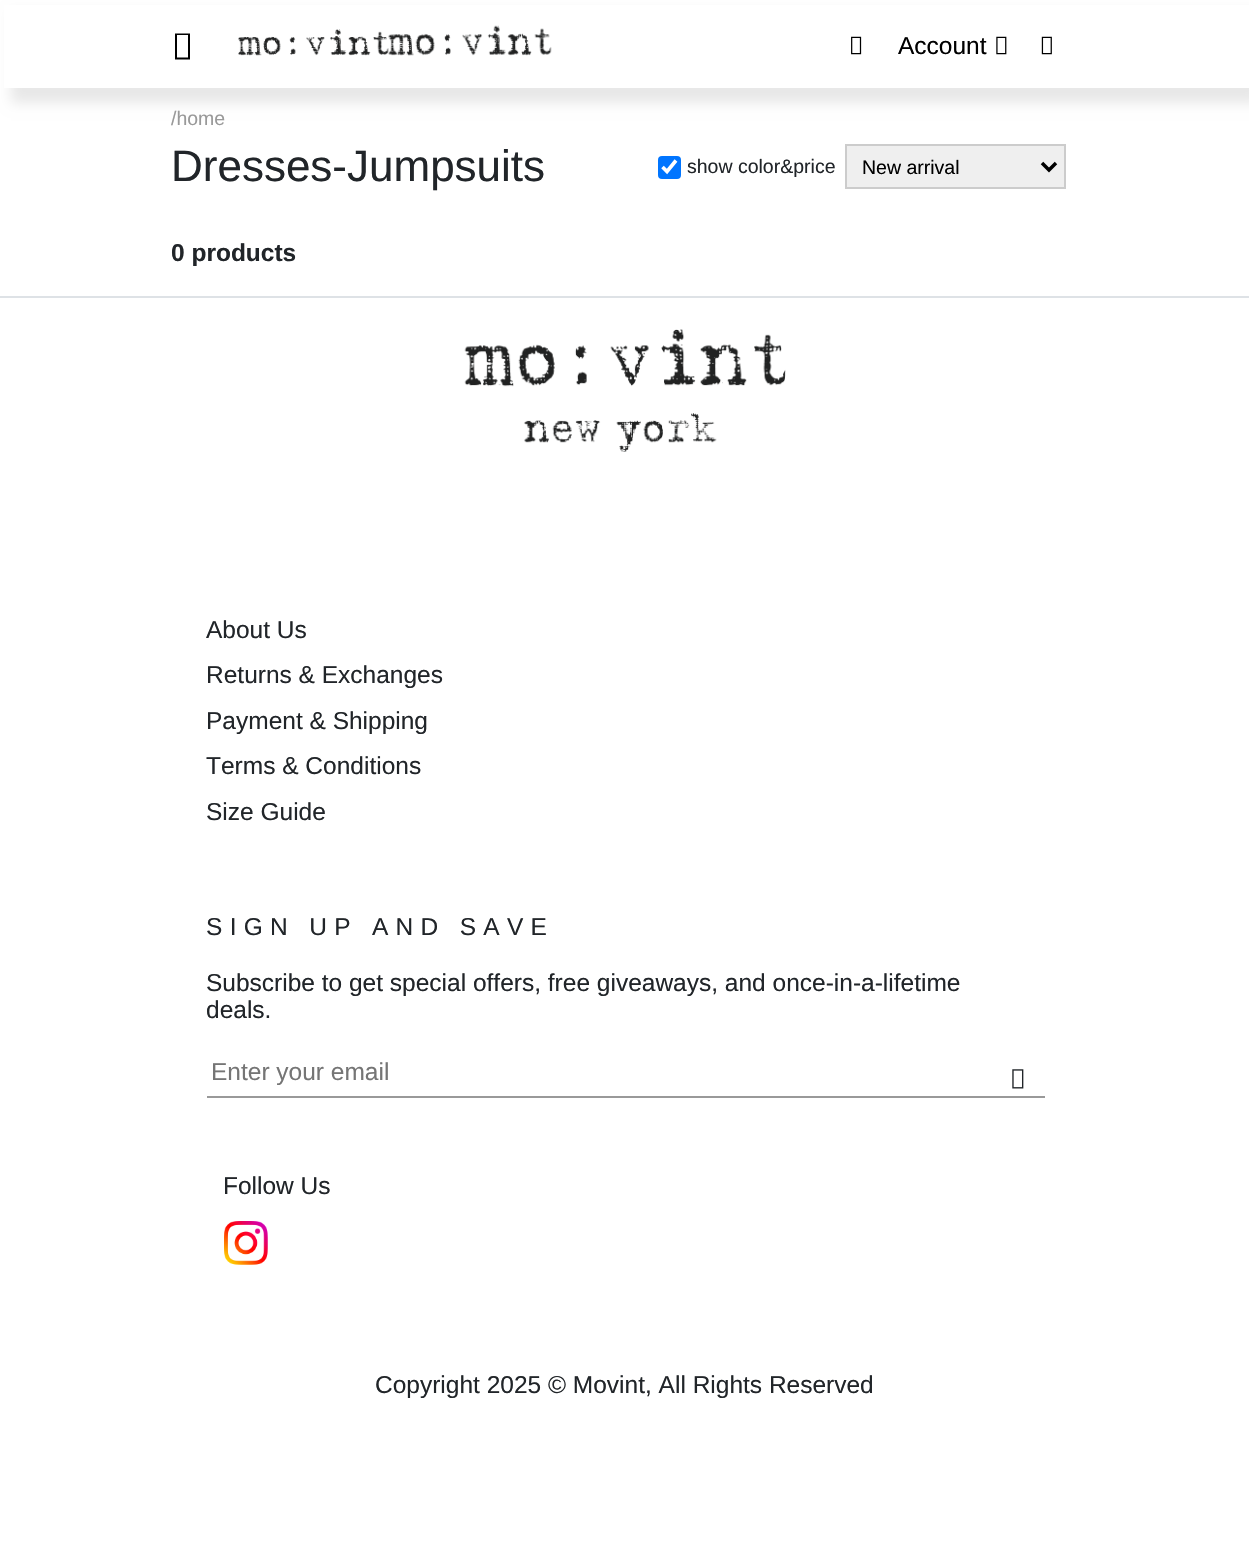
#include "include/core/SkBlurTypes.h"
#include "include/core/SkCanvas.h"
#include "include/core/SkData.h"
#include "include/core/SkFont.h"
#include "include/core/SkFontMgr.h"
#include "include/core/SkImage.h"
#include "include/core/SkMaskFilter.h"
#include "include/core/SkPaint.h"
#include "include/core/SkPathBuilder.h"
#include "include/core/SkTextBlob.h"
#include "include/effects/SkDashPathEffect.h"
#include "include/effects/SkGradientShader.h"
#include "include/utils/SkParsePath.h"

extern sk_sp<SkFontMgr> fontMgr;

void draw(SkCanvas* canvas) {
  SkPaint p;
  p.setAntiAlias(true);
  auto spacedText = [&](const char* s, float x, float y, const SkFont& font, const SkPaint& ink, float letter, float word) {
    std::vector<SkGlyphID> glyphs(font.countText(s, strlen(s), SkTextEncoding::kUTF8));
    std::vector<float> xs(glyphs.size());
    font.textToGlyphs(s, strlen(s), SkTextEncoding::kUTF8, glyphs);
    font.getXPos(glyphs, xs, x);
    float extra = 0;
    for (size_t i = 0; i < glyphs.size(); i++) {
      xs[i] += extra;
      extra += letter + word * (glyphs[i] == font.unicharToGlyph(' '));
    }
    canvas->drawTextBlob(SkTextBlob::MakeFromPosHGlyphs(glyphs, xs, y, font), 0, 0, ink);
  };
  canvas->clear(SK_ColorWHITE);
  p.setColor(SkColorSetARGB(23, 0, 0, 0));
  p.setMaskFilter(SkMaskFilter::MakeBlur(kNormal_SkBlurStyle, 6));
  canvas->drawRect(SkRect::MakeLTRB(11, 12, 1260, 103), p);
  p.setMaskFilter(nullptr);
  p.setColor(SK_ColorWHITE);
  canvas->drawRect(SkRect::MakeLTRB(4, 5, 1249, 88), p);
  p.setColor(SK_ColorBLACK);
  canvas->drawPath(SkPathBuilder().moveTo(175, 59.5f).lineTo(175, 33.5f).lineTo(190, 33.5f).lineTo(190, 59.5f).close().moveTo(177, 57.5f).lineTo(188, 57.5f).lineTo(188, 35).lineTo(177, 35).close().detach(), p);
  canvas->drawImageRect(SkImages::DeferredFromEncodedData(SkData::MakeFromFileName("images/1.png")), SkRect::MakeLTRB(238, 29, 389, 56), SkSamplingOptions());
  canvas->drawImageRect(SkImages::DeferredFromEncodedData(SkData::MakeFromFileName("images/2.png")), SkRect::MakeLTRB(388, 25, 552, 56), SkSamplingOptions());
  canvas->drawImageRect(SkImages::DeferredFromEncodedData(SkData::MakeFromFileName("images/3.png")), SkRect::MakeLTRB(851, 36, 862, 55), SkSamplingOptions());
  canvas->drawImageRect(SkImages::DeferredFromEncodedData(SkData::MakeFromFileName("images/4.png")), SkRect::MakeLTRB(996, 36, 1007, 55), SkSamplingOptions());
  canvas->drawImageRect(SkImages::DeferredFromEncodedData(SkData::MakeFromFileName("images/5.png")), SkRect::MakeLTRB(1041, 36, 1052, 55), SkSamplingOptions());
  p.setColor(SkColorSetRGB(0, 117, 255));
  canvas->drawRoundRect(SkRect::MakeLTRB(658, 156, 681, 179), 4, 4, p);
  p.setStyle(SkPaint::kStroke_Style);
  p.setStrokeWidth(3.6f);
  p.setColor(SK_ColorWHITE);
  canvas->drawPath(SkPathBuilder().moveTo(662.5f, 167).lineTo(667, 171.5f).lineTo(676, 160.5f).detach(), p);
  p.setStyle(SkPaint::kFill_Style);
  p.setColor(SkColorSetRGB(239, 239, 239));
  canvas->drawRect(SkRect::MakeLTRB(846, 145, 1065, 188), p);
  p.setStyle(SkPaint::kStroke_Style);
  p.setStrokeWidth(2);
  p.setColor(SkColorSetRGB(204, 204, 204));
  canvas->drawRect(SkRect::MakeLTRB(846, 145, 1065, 188), p);
  p.setStrokeWidth(3.5f);
  p.setColor(SK_ColorBLACK);
  canvas->drawPath(SkPathBuilder().moveTo(1042, 163).lineTo(1049, 170).lineTo(1056, 163).detach(), p);
  p.setStyle(SkPaint::kFill_Style);
  p.setColor(SkColorSetRGB(222, 226, 230));
  canvas->drawRect(SkRect::MakeLTRB(0, 296, 1249, 298), p);
  canvas->drawImageRect(SkImages::DeferredFromEncodedData(SkData::MakeFromFileName("images/6.png")), SkRect::MakeLTRB(464, 329, 786, 452), SkSamplingOptions());
  p.setColor(SkColorSetRGB(153, 153, 153));
  canvas->drawRect(SkRect::MakeLTRB(207, 1096, 1045, 1098), p);
  canvas->drawImageRect(SkImages::DeferredFromEncodedData(SkData::MakeFromFileName("images/7.png")), SkRect::MakeLTRB(1012, 1069, 1024, 1089), SkSamplingOptions());
  canvas->drawImageRect(SkImages::DeferredFromEncodedData(SkData::MakeFromFileName("images/8.png")), SkRect::MakeLTRB(224, 1221, 268, 1265), SkSamplingOptions());
  SkFont font1(fontMgr->matchFamilyStyle("Liberation Sans", SkFontStyle::Normal()), 24.5f);
  font1.setSubpixel(true);
  p.setColor(SK_ColorBLACK);
  canvas->drawString("Account", 898, 54, font1, p);
  SkFont font2(fontMgr->matchFamilyStyle("Liberation Sans", SkFontStyle::Normal()), 19.5f);
  font2.setSubpixel(true);
  p.setColor(SkColorSetRGB(153, 153, 153));
  canvas->drawString("/home", 171, 125, font2, p);
  SkFont font3(fontMgr->matchFamilyStyle("Liberation Sans", SkFontStyle::Normal()), 44);
  font3.setSubpixel(true);
  p.setColor(SkColorSetRGB(33, 37, 41));
  canvas->drawString("Dresses-Jumpsuits", 171, 181, font3, p);
  canvas->drawString("show color&price", 687, 173, font2, p);
  p.setColor(SK_ColorBLACK);
  canvas->drawString("New arrival", 862, 174, font2, p);
  SkFont font4(fontMgr->matchFamilyStyle("Liberation Sans", SkFontStyle::Bold()), 24.5f);
  font4.setSubpixel(true);
  p.setColor(SkColorSetRGB(33, 37, 41));
  canvas->drawString("0 products", 171, 261, font4, p);
  canvas->drawString("About Us", 206, 638, font1, p);
  canvas->drawString("Returns & Exchanges", 206, 683, font1, p);
  canvas->drawString("Payment & Shipping", 206, 729, font1, p);
  canvas->drawString("Terms & Conditions", 206, 774, font1, p);
  canvas->drawString("Size Guide", 206, 820, font1, p);
  spacedText("SIGN UP AND SAVE", 206, 935, font1, p, 7.3f, 0);
  canvas->drawString("Subscribe to get special offers, free giveaways, and once-in-a-lifetime", 206, 991, font1, p);
  canvas->drawString("deals.", 206, 1018, font1, p);
  p.setColor(SkColorSetRGB(117, 117, 117));
  canvas->drawString("Enter your email", 211, 1080, font1, p);
  p.setColor(SkColorSetRGB(33, 37, 41));
  canvas->drawString("Follow Us", 223, 1194, font1, p);
  canvas->drawString("Copyright 2025 © Movint, All Rights Reserved", 375, 1393, font1, p);
}
